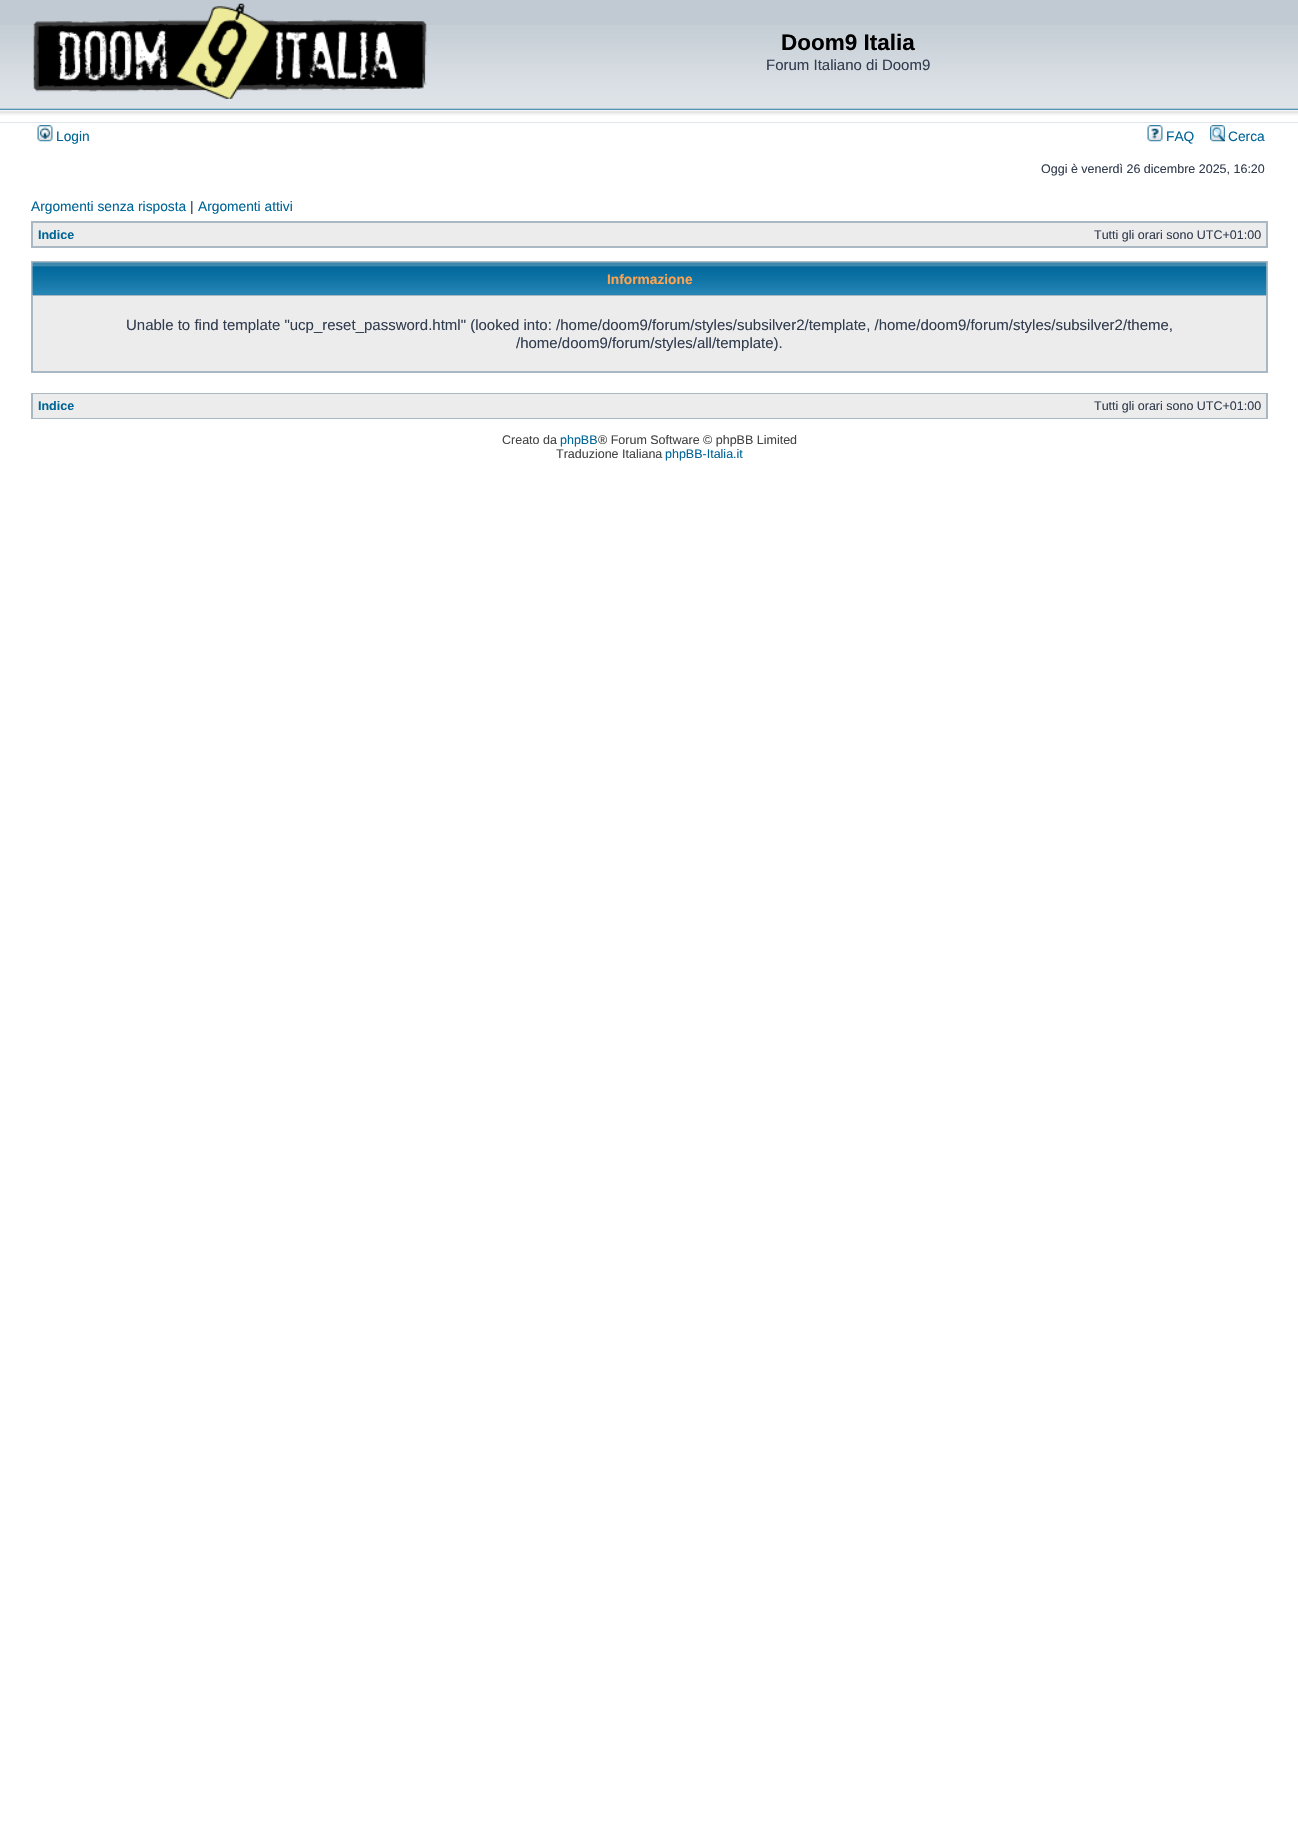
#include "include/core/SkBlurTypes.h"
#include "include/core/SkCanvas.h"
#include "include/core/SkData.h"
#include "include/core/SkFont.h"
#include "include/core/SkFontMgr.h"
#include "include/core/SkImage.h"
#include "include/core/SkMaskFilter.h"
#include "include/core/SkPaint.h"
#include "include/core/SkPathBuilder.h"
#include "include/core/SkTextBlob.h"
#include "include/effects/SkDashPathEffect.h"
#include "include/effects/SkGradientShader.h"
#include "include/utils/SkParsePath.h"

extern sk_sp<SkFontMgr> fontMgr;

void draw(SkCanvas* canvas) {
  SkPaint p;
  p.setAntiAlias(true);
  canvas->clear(SK_ColorWHITE);
  p.setColor(SkColorSetRGB(193, 202, 210));
  canvas->drawRect(SkRect::MakeLTRB(0, 0, 1298, 123), p);
  canvas->drawImageRect(SkImages::DeferredFromEncodedData(SkData::MakeFromFileName("images/1.png")), SkRect::MakeLTRB(0, 25, 1298, 123), SkSamplingOptions());
  canvas->drawImageRect(SkImages::DeferredFromEncodedData(SkData::MakeFromFileName("images/2.png")), SkRect::MakeLTRB(33, 3, 427, 99), SkSamplingOptions());
  canvas->drawImageRect(SkImages::DeferredFromEncodedData(SkData::MakeFromFileName("images/3.png")), SkRect::MakeLTRB(37, 125, 53, 142), SkSamplingOptions());
  canvas->drawImageRect(SkImages::DeferredFromEncodedData(SkData::MakeFromFileName("images/4.png")), SkRect::MakeLTRB(1147, 125, 1163, 142), SkSamplingOptions());
  canvas->drawImageRect(SkImages::DeferredFromEncodedData(SkData::MakeFromFileName("images/5.png")), SkRect::MakeLTRB(1210, 125, 1225, 142), SkSamplingOptions());
  p.setColor(SkColorSetRGB(169, 184, 194));
  canvas->drawRect(SkRect::MakeLTRB(31, 221, 1268, 248), p);
  p.setColor(SkColorSetRGB(236, 236, 236));
  canvas->drawRect(SkRect::MakeLTRB(33, 223, 1266, 246), p);
  p.setColor(SkColorSetRGB(169, 184, 194));
  canvas->drawRect(SkRect::MakeLTRB(31, 261, 1268, 373), p);
  canvas->drawImageRect(SkImages::DeferredFromEncodedData(SkData::MakeFromFileName("images/6.png")), SkRect::MakeLTRB(32, 262, 1267, 295), SkSamplingOptions());
  p.setColor(SkColorSetRGB(236, 236, 236));
  canvas->drawRect(SkRect::MakeLTRB(33, 296, 1266, 371), p);
  p.setColor(SkColorSetRGB(169, 184, 194));
  canvas->drawRect(SkRect::MakeLTRB(31, 393, 1268, 419), p);
  p.setColor(SkColorSetRGB(236, 236, 236));
  canvas->drawRect(SkRect::MakeLTRB(33, 394, 1266, 418), p);
  SkFont font1(fontMgr->matchFamilyStyle("Liberation Sans", SkFontStyle::Bold()), 22.5f);
  font1.setSubpixel(true);
  p.setColor(SK_ColorBLACK);
  canvas->drawString("Doom9 Italia", 781, 50, font1, p);
  SkFont font2(fontMgr->matchFamilyStyle("Liberation Sans", SkFontStyle::Normal()), 15);
  font2.setSubpixel(true);
  p.setColor(SkColorSetRGB(50, 61, 79));
  canvas->drawString("Forum Italiano di Doom9", 766, 70, font2, p);
  SkFont font3(fontMgr->matchFamilyStyle("Liberation Sans", SkFontStyle::Normal()), 13.75f);
  font3.setSubpixel(true);
  p.setColor(SkColorSetRGB(0, 101, 151));
  canvas->drawString("Login", 56, 141, font3, p);
  canvas->drawString("FAQ", 1166, 141, font3, p);
  canvas->drawString("Cerca", 1228, 141, font3, p);
  SkFont font4(fontMgr->matchFamilyStyle("Liberation Sans", SkFontStyle::Normal()), 12.5f);
  font4.setSubpixel(true);
  p.setColor(SkColorSetRGB(50, 61, 79));
  canvas->drawString("Oggi è venerdì 26 dicembre 2025, 16:20", 1041, 173, font4, p);
  p.setColor(SkColorSetRGB(0, 101, 151));
  canvas->drawString("Argomenti senza risposta", 31, 211, font3, p);
  p.setColor(SkColorSetRGB(50, 61, 79));
  canvas->drawString("|", 190, 211, font3, p);
  p.setColor(SkColorSetRGB(0, 101, 151));
  canvas->drawString("Argomenti attivi", 198, 211, font3, p);
  SkFont font5(fontMgr->matchFamilyStyle("Liberation Sans", SkFontStyle::Bold()), 12.5f);
  font5.setSubpixel(true);
  canvas->drawString("Indice", 38, 239, font5, p);
  p.setColor(SkColorSetRGB(50, 61, 79));
  canvas->drawString("Tutti gli orari sono UTC+01:00", 1094, 239, font4, p);
  SkFont font6(fontMgr->matchFamilyStyle("Liberation Sans", SkFontStyle::Bold()), 13.75f);
  font6.setSubpixel(true);
  p.setColor(SkColorSetRGB(255, 163, 79));
  canvas->drawString("Informazione", 607, 284, font6, p);
  p.setColor(SkColorSetRGB(50, 61, 79));
  canvas->drawString("Unable to find template \"ucp_reset_password.html\" (looked into: /home/doom9/forum/styles/subsilver2/template, /home/doom9/forum/styles/subsilver2/theme,", 126, 330, font2, p);
  canvas->drawString("/home/doom9/forum/styles/all/template).", 516, 348, font2, p);
  p.setColor(SkColorSetRGB(0, 101, 151));
  canvas->drawString("Indice", 38, 410, font5, p);
  p.setColor(SkColorSetRGB(50, 61, 79));
  canvas->drawString("Tutti gli orari sono UTC+01:00", 1094, 410, font4, p);
  p.setColor(SkColorSetRGB(68, 68, 68));
  canvas->drawString("Creato da", 502, 444, font4, p);
  p.setColor(SkColorSetRGB(0, 101, 151));
  canvas->drawString("phpBB", 560, 444, font4, p);
  p.setColor(SkColorSetRGB(68, 68, 68));
  canvas->drawString("® Forum Software © phpBB Limited", 598, 444, font4, p);
  canvas->drawString("Traduzione Italiana", 556, 458, font4, p);
  p.setColor(SkColorSetRGB(0, 101, 151));
  canvas->drawString("phpBB-Italia.it", 665, 458, font4, p);
}
